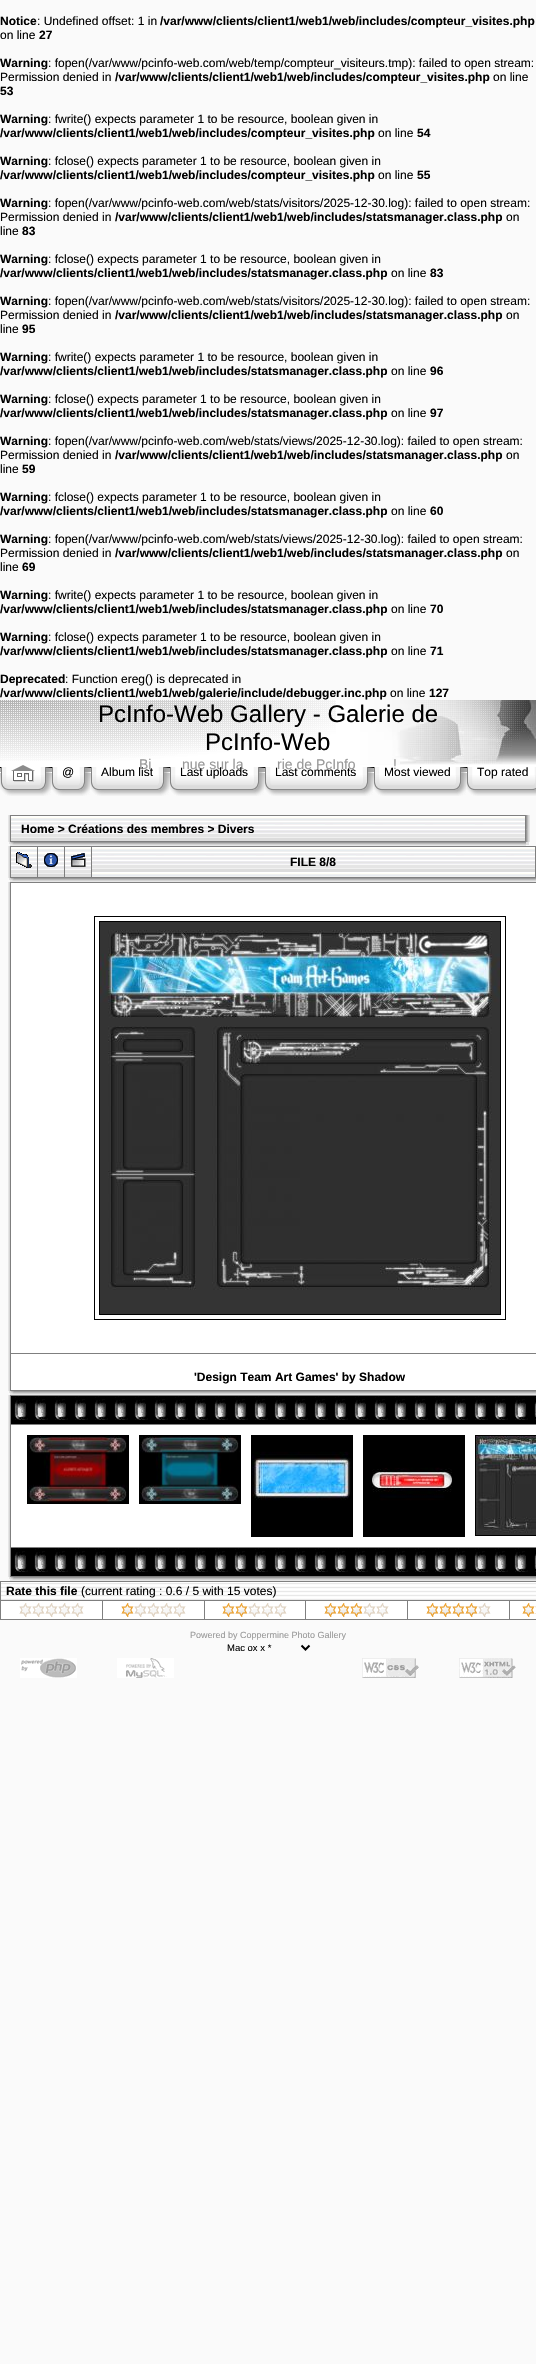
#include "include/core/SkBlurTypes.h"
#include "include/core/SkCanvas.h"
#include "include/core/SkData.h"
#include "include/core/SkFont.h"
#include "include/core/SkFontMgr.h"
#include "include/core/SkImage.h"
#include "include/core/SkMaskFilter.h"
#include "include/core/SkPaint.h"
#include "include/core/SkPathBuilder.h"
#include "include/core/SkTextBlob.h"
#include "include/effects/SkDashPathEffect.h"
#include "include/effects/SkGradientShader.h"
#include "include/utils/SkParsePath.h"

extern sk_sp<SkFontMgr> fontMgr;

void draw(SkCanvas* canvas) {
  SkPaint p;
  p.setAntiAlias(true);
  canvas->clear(SkColorSetRGB(250, 250, 250));
  p.setColor(SK_ColorWHITE);
  canvas->drawRect(SkRect::MakeLTRB(0, 761, 336, 765), p);
  canvas->drawImageRect(SkImages::DeferredFromEncodedData(SkData::MakeFromFileName("images/1.png")), SkRect::MakeLTRB(0, 700, 336, 761), SkSamplingOptions());
  canvas->drawImageRect(SkImages::DeferredFromEncodedData(SkData::MakeFromFileName("images/2.png")), SkRect::MakeLTRB(336, 700, 536, 765), SkSamplingOptions());
  canvas->drawImageRect(SkImages::DeferredFromEncodedData(SkData::MakeFromFileName("images/3.png")), SkRect::MakeLTRB(0, 765, 536, 790), SkSamplingOptions());
  canvas->drawImageRect(SkImages::DeferredFromEncodedData(SkData::MakeFromFileName("images/4.png")), SkRect::MakeLTRB(1, 767, 11, 796), SkSamplingOptions());
  canvas->drawImageRect(SkImages::DeferredFromEncodedData(SkData::MakeFromFileName("images/5.png")), SkRect::MakeLTRB(11, 767, 35, 796), SkSamplingOptions());
  canvas->drawImageRect(SkImages::DeferredFromEncodedData(SkData::MakeFromFileName("images/6.png")), SkRect::MakeLTRB(11, 765, 35, 782), SkSamplingOptions());
  canvas->drawImageRect(SkImages::DeferredFromEncodedData(SkData::MakeFromFileName("images/7.png")), SkRect::MakeLTRB(35, 767, 51, 796), SkSamplingOptions());
  canvas->drawImageRect(SkImages::DeferredFromEncodedData(SkData::MakeFromFileName("images/4.png")), SkRect::MakeLTRB(52, 767, 62, 796), SkSamplingOptions());
  canvas->drawImageRect(SkImages::DeferredFromEncodedData(SkData::MakeFromFileName("images/8.png")), SkRect::MakeLTRB(62, 767, 74, 796), SkSamplingOptions());
  canvas->drawImageRect(SkImages::DeferredFromEncodedData(SkData::MakeFromFileName("images/7.png")), SkRect::MakeLTRB(74, 767, 90, 796), SkSamplingOptions());
  canvas->drawImageRect(SkImages::DeferredFromEncodedData(SkData::MakeFromFileName("images/4.png")), SkRect::MakeLTRB(91, 767, 101, 796), SkSamplingOptions());
  canvas->drawImageRect(SkImages::DeferredFromEncodedData(SkData::MakeFromFileName("images/9.png")), SkRect::MakeLTRB(101, 767, 153, 796), SkSamplingOptions());
  canvas->drawImageRect(SkImages::DeferredFromEncodedData(SkData::MakeFromFileName("images/11.png")), SkRect::MakeLTRB(169, 765, 180, 796), SkSamplingOptions());
  canvas->drawImageRect(SkImages::DeferredFromEncodedData(SkData::MakeFromFileName("images/12.png")), SkRect::MakeLTRB(180, 767, 248, 796), SkSamplingOptions());
  canvas->drawImageRect(SkImages::DeferredFromEncodedData(SkData::MakeFromFileName("images/10.png")), SkRect::MakeLTRB(248, 765, 264, 796), SkSamplingOptions());
  canvas->drawImageRect(SkImages::DeferredFromEncodedData(SkData::MakeFromFileName("images/11.png")), SkRect::MakeLTRB(264, 765, 275, 796), SkSamplingOptions());
  canvas->drawImageRect(SkImages::DeferredFromEncodedData(SkData::MakeFromFileName("images/13.png")), SkRect::MakeLTRB(275, 767, 357, 796), SkSamplingOptions());
  canvas->drawImageRect(SkImages::DeferredFromEncodedData(SkData::MakeFromFileName("images/10.png")), SkRect::MakeLTRB(357, 765, 373, 796), SkSamplingOptions());
  canvas->drawImageRect(SkImages::DeferredFromEncodedData(SkData::MakeFromFileName("images/14.png")), SkRect::MakeLTRB(374, 765, 384, 796), SkSamplingOptions());
  canvas->drawImageRect(SkImages::DeferredFromEncodedData(SkData::MakeFromFileName("images/15.png")), SkRect::MakeLTRB(384, 767, 450, 796), SkSamplingOptions());
  canvas->drawImageRect(SkImages::DeferredFromEncodedData(SkData::MakeFromFileName("images/7.png")), SkRect::MakeLTRB(450, 767, 466, 796), SkSamplingOptions());
  canvas->drawImageRect(SkImages::DeferredFromEncodedData(SkData::MakeFromFileName("images/4.png")), SkRect::MakeLTRB(467, 767, 477, 796), SkSamplingOptions());
  canvas->drawImageRect(SkImages::DeferredFromEncodedData(SkData::MakeFromFileName("images/16.png")), SkRect::MakeLTRB(477, 767, 529, 796), SkSamplingOptions());
  canvas->drawImageRect(SkImages::DeferredFromEncodedData(SkData::MakeFromFileName("images/17.png")), SkRect::MakeLTRB(529, 767, 536, 796), SkSamplingOptions());
  canvas->drawImageRect(SkImages::DeferredFromEncodedData(SkData::MakeFromFileName("images/18.png")), SkRect::MakeLTRB(8, 815, 10, 842), SkSamplingOptions());
  p.setColor(SkColorSetRGB(127, 127, 127));
  canvas->drawRect(SkRect::MakeLTRB(10, 815, 526, 842), p);
  p.setColor(SK_ColorWHITE);
  canvas->drawRect(SkRect::MakeLTRB(11, 816, 525, 817), p);
  canvas->drawImageRect(SkImages::DeferredFromEncodedData(SkData::MakeFromFileName("images/19.png")), SkRect::MakeLTRB(11, 817, 525, 841), SkSamplingOptions());
  canvas->drawImageRect(SkImages::DeferredFromEncodedData(SkData::MakeFromFileName("images/20.png")), SkRect::MakeLTRB(526, 815, 530, 842), SkSamplingOptions());
  p.setColor(SkColorSetRGB(227, 227, 227));
  canvas->drawRect(SkRect::MakeLTRB(9, 842, 10, 844), p);
  canvas->drawImageRect(SkImages::DeferredFromEncodedData(SkData::MakeFromFileName("images/21.png")), SkRect::MakeLTRB(10, 842, 526, 846), SkSamplingOptions());
  canvas->drawImageRect(SkImages::DeferredFromEncodedData(SkData::MakeFromFileName("images/22.png")), SkRect::MakeLTRB(10, 842, 14, 845), SkSamplingOptions());
  p.setColor(SkColorSetRGB(225, 225, 225));
  canvas->drawRect(SkRect::MakeLTRB(526, 842, 529, 845), p);
  canvas->drawImageRect(SkImages::DeferredFromEncodedData(SkData::MakeFromFileName("images/23.png")), SkRect::MakeLTRB(8, 846, 10, 878), SkSamplingOptions());
  p.setColor(SkColorSetRGB(127, 127, 127));
  canvas->drawRect(SkRect::MakeLTRB(10, 846, 536, 878), p);
  p.setColor(SK_ColorWHITE);
  canvas->drawRect(SkRect::MakeLTRB(11, 847, 37, 848), p);
  canvas->drawImageRect(SkImages::DeferredFromEncodedData(SkData::MakeFromFileName("images/24.png")), SkRect::MakeLTRB(11, 848, 37, 852), SkSamplingOptions());
  canvas->drawRect(SkRect::MakeLTRB(11, 852, 37, 853), p);
  canvas->drawImageRect(SkImages::DeferredFromEncodedData(SkData::MakeFromFileName("images/25.png")), SkRect::MakeLTRB(11, 853, 37, 877), SkSamplingOptions());
  canvas->drawImageRect(SkImages::DeferredFromEncodedData(SkData::MakeFromFileName("images/26.png")), SkRect::MakeLTRB(16, 852, 32, 868), SkSamplingOptions());
  canvas->drawRect(SkRect::MakeLTRB(38, 847, 64, 848), p);
  canvas->drawImageRect(SkImages::DeferredFromEncodedData(SkData::MakeFromFileName("images/24.png")), SkRect::MakeLTRB(38, 848, 64, 852), SkSamplingOptions());
  canvas->drawRect(SkRect::MakeLTRB(38, 852, 64, 853), p);
  canvas->drawImageRect(SkImages::DeferredFromEncodedData(SkData::MakeFromFileName("images/25.png")), SkRect::MakeLTRB(38, 853, 64, 877), SkSamplingOptions());
  canvas->drawImageRect(SkImages::DeferredFromEncodedData(SkData::MakeFromFileName("images/27.png")), SkRect::MakeLTRB(44, 853, 58, 867), SkSamplingOptions());
  canvas->drawRect(SkRect::MakeLTRB(65, 847, 91, 848), p);
  canvas->drawImageRect(SkImages::DeferredFromEncodedData(SkData::MakeFromFileName("images/24.png")), SkRect::MakeLTRB(65, 848, 91, 852), SkSamplingOptions());
  canvas->drawRect(SkRect::MakeLTRB(65, 852, 91, 853), p);
  canvas->drawImageRect(SkImages::DeferredFromEncodedData(SkData::MakeFromFileName("images/25.png")), SkRect::MakeLTRB(65, 853, 91, 877), SkSamplingOptions());
  canvas->drawImageRect(SkImages::DeferredFromEncodedData(SkData::MakeFromFileName("images/28.png")), SkRect::MakeLTRB(71, 853, 86, 867), SkSamplingOptions());
  canvas->drawRect(SkRect::MakeLTRB(92, 847, 535, 848), p);
  canvas->drawImageRect(SkImages::DeferredFromEncodedData(SkData::MakeFromFileName("images/29.png")), SkRect::MakeLTRB(92, 848, 535, 877), SkSamplingOptions());
  p.setColor(SkColorSetRGB(227, 227, 227));
  canvas->drawRect(SkRect::MakeLTRB(9, 878, 10, 880), p);
  canvas->drawImageRect(SkImages::DeferredFromEncodedData(SkData::MakeFromFileName("images/30.png")), SkRect::MakeLTRB(10, 878, 536, 882), SkSamplingOptions());
  canvas->drawImageRect(SkImages::DeferredFromEncodedData(SkData::MakeFromFileName("images/22.png")), SkRect::MakeLTRB(10, 878, 14, 881), SkSamplingOptions());
  canvas->drawImageRect(SkImages::DeferredFromEncodedData(SkData::MakeFromFileName("images/31.png")), SkRect::MakeLTRB(8, 882, 10, 1391), SkSamplingOptions());
  p.setColor(SkColorSetRGB(127, 127, 127));
  canvas->drawRect(SkRect::MakeLTRB(10, 882, 536, 1391), p);
  p.setColor(SK_ColorWHITE);
  canvas->drawRect(SkRect::MakeLTRB(11, 883, 536, 1353), p);
  p.setStyle(SkPaint::kStroke_Style);
  p.setStrokeWidth(1);
  p.setColor(SK_ColorBLACK);
  canvas->drawRect(SkRect::MakeLTRB(94.5f, 916.5f, 505.5f, 1319.5f), p);
  canvas->drawRect(SkRect::MakeLTRB(99.5f, 921.5f, 500.5f, 1314.5f), p);
  canvas->drawImageRect(SkImages::DeferredFromEncodedData(SkData::MakeFromFileName("images/32.png")), SkRect::MakeLTRB(100, 922, 500, 1314), SkSamplingOptions());
  p.setStyle(SkPaint::kFill_Style);
  p.setColor(SK_ColorWHITE);
  canvas->drawRect(SkRect::MakeLTRB(11, 1354, 536, 1390), p);
  p.setColor(SkColorSetRGB(227, 227, 227));
  canvas->drawRect(SkRect::MakeLTRB(9, 1391, 10, 1393), p);
  canvas->drawImageRect(SkImages::DeferredFromEncodedData(SkData::MakeFromFileName("images/30.png")), SkRect::MakeLTRB(10, 1391, 536, 1395), SkSamplingOptions());
  canvas->drawImageRect(SkImages::DeferredFromEncodedData(SkData::MakeFromFileName("images/22.png")), SkRect::MakeLTRB(10, 1391, 14, 1394), SkSamplingOptions());
  canvas->drawImageRect(SkImages::DeferredFromEncodedData(SkData::MakeFromFileName("images/33.png")), SkRect::MakeLTRB(8, 1395, 10, 1577), SkSamplingOptions());
  p.setColor(SkColorSetRGB(127, 127, 127));
  canvas->drawRect(SkRect::MakeLTRB(10, 1395, 536, 1577), p);
  canvas->drawImageRect(SkImages::DeferredFromEncodedData(SkData::MakeFromFileName("images/34.png")), SkRect::MakeLTRB(11, 1396, 536, 1424), SkSamplingOptions());
  p.setColor(SK_ColorWHITE);
  canvas->drawRect(SkRect::MakeLTRB(11, 1425, 536, 1547), p);
  p.setStyle(SkPaint::kStroke_Style);
  p.setColor(SK_ColorBLACK);
  canvas->drawRect(SkRect::MakeLTRB(27.5f, 1435.5f, 128.5f, 1503.5f), p);
  canvas->drawImageRect(SkImages::DeferredFromEncodedData(SkData::MakeFromFileName("images/35.png")), SkRect::MakeLTRB(28, 1436, 128, 1503), SkSamplingOptions());
  canvas->drawRect(SkRect::MakeLTRB(139.5f, 1435.5f, 240.5f, 1503.5f), p);
  canvas->drawImageRect(SkImages::DeferredFromEncodedData(SkData::MakeFromFileName("images/36.png")), SkRect::MakeLTRB(140, 1436, 240, 1503), SkSamplingOptions());
  canvas->drawRect(SkRect::MakeLTRB(251.5f, 1435.5f, 352.5f, 1536.5f), p);
  canvas->drawImageRect(SkImages::DeferredFromEncodedData(SkData::MakeFromFileName("images/37.png")), SkRect::MakeLTRB(252, 1436, 352, 1536), SkSamplingOptions());
  canvas->drawRect(SkRect::MakeLTRB(363.5f, 1435.5f, 464.5f, 1536.5f), p);
  canvas->drawImageRect(SkImages::DeferredFromEncodedData(SkData::MakeFromFileName("images/38.png")), SkRect::MakeLTRB(364, 1436, 464, 1536), SkSamplingOptions());
  canvas->drawRect(SkRect::MakeLTRB(475.5f, 1435.5f, 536.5f, 1535.5f), p);
  canvas->drawImageRect(SkImages::DeferredFromEncodedData(SkData::MakeFromFileName("images/39.png")), SkRect::MakeLTRB(476, 1436, 536, 1535), SkSamplingOptions());
  canvas->drawImageRect(SkImages::DeferredFromEncodedData(SkData::MakeFromFileName("images/34.png")), SkRect::MakeLTRB(11, 1548, 536, 1576), SkSamplingOptions());
  p.setStyle(SkPaint::kFill_Style);
  p.setColor(SkColorSetRGB(227, 227, 227));
  canvas->drawRect(SkRect::MakeLTRB(9, 1577, 10, 1579), p);
  canvas->drawImageRect(SkImages::DeferredFromEncodedData(SkData::MakeFromFileName("images/30.png")), SkRect::MakeLTRB(10, 1577, 536, 1581), SkSamplingOptions());
  canvas->drawImageRect(SkImages::DeferredFromEncodedData(SkData::MakeFromFileName("images/22.png")), SkRect::MakeLTRB(10, 1577, 14, 1580), SkSamplingOptions());
  p.setColor(SkColorSetRGB(127, 127, 127));
  canvas->drawRect(SkRect::MakeLTRB(0, 1581, 536, 1620), p);
  p.setColor(SK_ColorWHITE);
  canvas->drawRect(SkRect::MakeLTRB(1, 1582, 536, 1583), p);
  canvas->drawImageRect(SkImages::DeferredFromEncodedData(SkData::MakeFromFileName("images/40.png")), SkRect::MakeLTRB(1, 1583, 536, 1600), SkSamplingOptions());
  canvas->drawRect(SkRect::MakeLTRB(1, 1601, 102, 1619), p);
  canvas->drawImageRect(SkImages::DeferredFromEncodedData(SkData::MakeFromFileName("images/41.png")), SkRect::MakeLTRB(19, 1603, 84, 1617), SkSamplingOptions());
  canvas->drawRect(SkRect::MakeLTRB(103, 1601, 204, 1619), p);
  canvas->drawImageRect(SkImages::DeferredFromEncodedData(SkData::MakeFromFileName("images/42.png")), SkRect::MakeLTRB(121, 1603, 186, 1617), SkSamplingOptions());
  canvas->drawRect(SkRect::MakeLTRB(205, 1601, 305, 1619), p);
  canvas->drawImageRect(SkImages::DeferredFromEncodedData(SkData::MakeFromFileName("images/43.png")), SkRect::MakeLTRB(222, 1603, 287, 1617), SkSamplingOptions());
  canvas->drawRect(SkRect::MakeLTRB(306, 1601, 407, 1619), p);
  canvas->drawImageRect(SkImages::DeferredFromEncodedData(SkData::MakeFromFileName("images/44.png")), SkRect::MakeLTRB(324, 1603, 389, 1617), SkSamplingOptions());
  canvas->drawRect(SkRect::MakeLTRB(408, 1601, 509, 1619), p);
  canvas->drawImageRect(SkImages::DeferredFromEncodedData(SkData::MakeFromFileName("images/45.png")), SkRect::MakeLTRB(426, 1603, 491, 1617), SkSamplingOptions());
  canvas->drawRect(SkRect::MakeLTRB(510, 1601, 536, 1619), p);
  canvas->drawImageRect(SkImages::DeferredFromEncodedData(SkData::MakeFromFileName("images/46.png")), SkRect::MakeLTRB(522, 1603, 536, 1617), SkSamplingOptions());
  p.setStyle(SkPaint::kStroke_Style);
  p.setStrokeWidth(2);
  p.setColor(SK_ColorBLACK);
  canvas->drawPath(SkPathBuilder().moveTo(301.5f, 1645.5f).lineTo(305.5f, 1649.5f).lineTo(309.5f, 1645.5f).detach(), p);
  canvas->drawImageRect(SkImages::DeferredFromEncodedData(SkData::MakeFromFileName("images/47.png")), SkRect::MakeLTRB(20, 1658, 77, 1678), SkSamplingOptions());
  canvas->drawImageRect(SkImages::DeferredFromEncodedData(SkData::MakeFromFileName("images/48.png")), SkRect::MakeLTRB(117, 1658, 174, 1678), SkSamplingOptions());
  canvas->drawImageRect(SkImages::DeferredFromEncodedData(SkData::MakeFromFileName("images/49.png")), SkRect::MakeLTRB(362, 1658, 419, 1678), SkSamplingOptions());
  canvas->drawImageRect(SkImages::DeferredFromEncodedData(SkData::MakeFromFileName("images/50.png")), SkRect::MakeLTRB(459, 1658, 516, 1678), SkSamplingOptions());
  SkFont font1(fontMgr->matchFamilyStyle("Liberation Sans", SkFontStyle::Bold()), 12);
  font1.setSubpixel(true);
  p.setStyle(SkPaint::kFill_Style);
  canvas->drawString("Notice", 0, 25, font1, p);
  SkFont font2(fontMgr->matchFamilyStyle("Liberation Sans", SkFontStyle::Normal()), 12);
  font2.setSubpixel(true);
  canvas->drawString(": Undefined offset: 1 in", 37, 25, font2, p);
  canvas->drawString("/var/www/clients/client1/web1/web/includes/compteur_visites.php", 160, 25, font1, p);
  canvas->drawString("on line", 0, 39, font2, p);
  canvas->drawString("27", 39, 39, font1, p);
  canvas->drawString("Warning", 0, 67, font1, p);
  canvas->drawString(": fopen(/var/www/pcinfo-web.com/web/temp/compteur_visiteurs.tmp): failed to open stream:", 48, 67, font2, p);
  canvas->drawString("Permission denied in", 0, 81, font2, p);
  canvas->drawString("/var/www/clients/client1/web1/web/includes/compteur_visites.php", 115, 81, font1, p);
  canvas->drawString("on line", 493, 81, font2, p);
  canvas->drawString("53", 0, 95, font1, p);
  canvas->drawString("Warning", 0, 123, font1, p);
  canvas->drawString(": fwrite() expects parameter 1 to be resource, boolean given in", 48, 123, font2, p);
  canvas->drawString("/var/www/clients/client1/web1/web/includes/compteur_visites.php", 0, 137, font1, p);
  canvas->drawString("on line", 378, 137, font2, p);
  canvas->drawString("54", 417, 137, font1, p);
  canvas->drawString("Warning", 0, 165, font1, p);
  canvas->drawString(": fclose() expects parameter 1 to be resource, boolean given in", 48, 165, font2, p);
  canvas->drawString("/var/www/clients/client1/web1/web/includes/compteur_visites.php", 0, 179, font1, p);
  canvas->drawString("on line", 378, 179, font2, p);
  canvas->drawString("55", 417, 179, font1, p);
  canvas->drawString("Warning", 0, 207, font1, p);
  canvas->drawString(": fopen(/var/www/pcinfo-web.com/web/stats/visitors/2025-12-30.log): failed to open stream:", 48, 207, font2, p);
  canvas->drawString("Permission denied in", 0, 221, font2, p);
  canvas->drawString("/var/www/clients/client1/web1/web/includes/statsmanager.class.php", 115, 221, font1, p);
  canvas->drawString("on", 506, 221, font2, p);
  canvas->drawString("line", 0, 235, font2, p);
  canvas->drawString("83", 22, 235, font1, p);
  canvas->drawString("Warning", 0, 263, font1, p);
  canvas->drawString(": fclose() expects parameter 1 to be resource, boolean given in", 48, 263, font2, p);
  canvas->drawString("/var/www/clients/client1/web1/web/includes/statsmanager.class.php", 0, 277, font1, p);
  canvas->drawString("on line", 391, 277, font2, p);
  canvas->drawString("83", 430, 277, font1, p);
  canvas->drawString("Warning", 0, 305, font1, p);
  canvas->drawString(": fopen(/var/www/pcinfo-web.com/web/stats/visitors/2025-12-30.log): failed to open stream:", 48, 305, font2, p);
  canvas->drawString("Permission denied in", 0, 319, font2, p);
  canvas->drawString("/var/www/clients/client1/web1/web/includes/statsmanager.class.php", 115, 319, font1, p);
  canvas->drawString("on", 506, 319, font2, p);
  canvas->drawString("line", 0, 333, font2, p);
  canvas->drawString("95", 22, 333, font1, p);
  canvas->drawString("Warning", 0, 361, font1, p);
  canvas->drawString(": fwrite() expects parameter 1 to be resource, boolean given in", 48, 361, font2, p);
  canvas->drawString("/var/www/clients/client1/web1/web/includes/statsmanager.class.php", 0, 375, font1, p);
  canvas->drawString("on line", 391, 375, font2, p);
  canvas->drawString("96", 430, 375, font1, p);
  canvas->drawString("Warning", 0, 403, font1, p);
  canvas->drawString(": fclose() expects parameter 1 to be resource, boolean given in", 48, 403, font2, p);
  canvas->drawString("/var/www/clients/client1/web1/web/includes/statsmanager.class.php", 0, 417, font1, p);
  canvas->drawString("on line", 391, 417, font2, p);
  canvas->drawString("97", 430, 417, font1, p);
  canvas->drawString("Warning", 0, 445, font1, p);
  canvas->drawString(": fopen(/var/www/pcinfo-web.com/web/stats/views/2025-12-30.log): failed to open stream:", 48, 445, font2, p);
  canvas->drawString("Permission denied in", 0, 459, font2, p);
  canvas->drawString("/var/www/clients/client1/web1/web/includes/statsmanager.class.php", 115, 459, font1, p);
  canvas->drawString("on", 506, 459, font2, p);
  canvas->drawString("line", 0, 473, font2, p);
  canvas->drawString("59", 22, 473, font1, p);
  canvas->drawString("Warning", 0, 501, font1, p);
  canvas->drawString(": fclose() expects parameter 1 to be resource, boolean given in", 48, 501, font2, p);
  canvas->drawString("/var/www/clients/client1/web1/web/includes/statsmanager.class.php", 0, 515, font1, p);
  canvas->drawString("on line", 391, 515, font2, p);
  canvas->drawString("60", 430, 515, font1, p);
  canvas->drawString("Warning", 0, 543, font1, p);
  canvas->drawString(": fopen(/var/www/pcinfo-web.com/web/stats/views/2025-12-30.log): failed to open stream:", 48, 543, font2, p);
  canvas->drawString("Permission denied in", 0, 557, font2, p);
  canvas->drawString("/var/www/clients/client1/web1/web/includes/statsmanager.class.php", 115, 557, font1, p);
  canvas->drawString("on", 506, 557, font2, p);
  canvas->drawString("line", 0, 571, font2, p);
  canvas->drawString("69", 22, 571, font1, p);
  canvas->drawString("Warning", 0, 599, font1, p);
  canvas->drawString(": fwrite() expects parameter 1 to be resource, boolean given in", 48, 599, font2, p);
  canvas->drawString("/var/www/clients/client1/web1/web/includes/statsmanager.class.php", 0, 613, font1, p);
  canvas->drawString("on line", 391, 613, font2, p);
  canvas->drawString("70", 430, 613, font1, p);
  canvas->drawString("Warning", 0, 641, font1, p);
  canvas->drawString(": fclose() expects parameter 1 to be resource, boolean given in", 48, 641, font2, p);
  canvas->drawString("/var/www/clients/client1/web1/web/includes/statsmanager.class.php", 0, 655, font1, p);
  canvas->drawString("on line", 391, 655, font2, p);
  canvas->drawString("71", 430, 655, font1, p);
  canvas->drawString("Deprecated", 0, 683, font1, p);
  canvas->drawString(": Function ereg() is deprecated in", 65, 683, font2, p);
  canvas->drawString("/var/www/clients/client1/web1/web/galerie/include/debugger.inc.php", 0, 697, font1, p);
  canvas->drawString("on line", 390, 697, font2, p);
  canvas->drawString("127", 429, 697, font1, p);
  SkFont font3(fontMgr->matchFamilyStyle("Liberation Sans", SkFontStyle::Normal()), 24);
  font3.setSubpixel(true);
  canvas->drawString("PcInfo-Web Gallery - Galerie de", 98, 722, font3, p);
  canvas->drawString("PcInfo-Web", 205, 750, font3, p);
  SkFont font4(fontMgr->matchFamilyStyle("Liberation Sans", SkFontStyle::Normal()), 14);
  font4.setSubpixel(true);
  p.setColor(SkColorSetRGB(153, 153, 153));
  canvas->drawString("Bi", 139, 769, font4, p);
  canvas->drawString("nue sur la", 182, 769, font4, p);
  canvas->drawString("rie de PcInfo", 277, 769, font4, p);
  canvas->drawString("!", 393, 769, font4, p);
  p.setColor(SK_ColorBLACK);
  canvas->drawString("@", 62, 776, font2, p);
  canvas->drawString("Album list", 101, 776, font2, p);
  canvas->drawImageRect(SkImages::DeferredFromEncodedData(SkData::MakeFromFileName("images/10.png")), SkRect::MakeLTRB(153, 765, 169, 796), SkSamplingOptions());
  canvas->drawString("Last uploads", 180, 776, font2, p);
  canvas->drawString("Last comments", 275, 776, font2, p);
  canvas->drawString("Most viewed", 384, 776, font2, p);
  canvas->drawString("Top rated", 477, 776, font2, p);
  canvas->drawString("Home > Créations des membres > Divers", 21, 833, font1, p);
  canvas->drawString("FILE 8/8", 290, 866, font1, p);
  canvas->drawString("'Design Team Art Games' by Shadow", 194, 1381, font1, p);
  canvas->drawString("Rate this file", 6, 1595, font1, p);
  canvas->drawString("(current rating : 0.6 / 5 with 15 votes)", 81, 1595, font2, p);
  SkFont font5(fontMgr->matchFamilyStyle("Liberation Sans", SkFontStyle::Normal()), 9);
  font5.setSubpixel(true);
  p.setColor(SkColorSetRGB(153, 153, 153));
  canvas->drawString("Powered by Coppermine Photo Gallery", 190, 1638, font5, p);
  SkFont font6(fontMgr->matchFamilyStyle("Liberation Sans", SkFontStyle::Normal()), 9.5f);
  font6.setSubpixel(true);
  p.setColor(SK_ColorBLACK);
  canvas->drawString("Mac ox x *", 227, 1651, font6, p);
}
